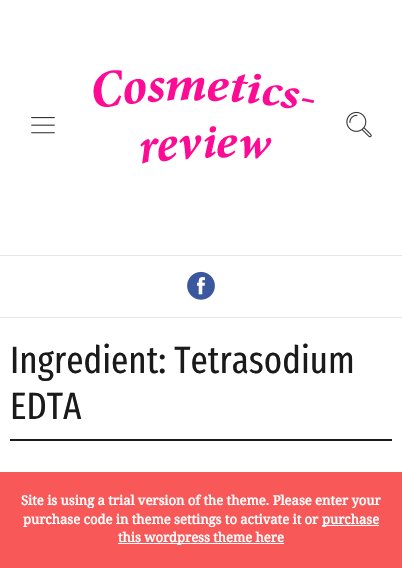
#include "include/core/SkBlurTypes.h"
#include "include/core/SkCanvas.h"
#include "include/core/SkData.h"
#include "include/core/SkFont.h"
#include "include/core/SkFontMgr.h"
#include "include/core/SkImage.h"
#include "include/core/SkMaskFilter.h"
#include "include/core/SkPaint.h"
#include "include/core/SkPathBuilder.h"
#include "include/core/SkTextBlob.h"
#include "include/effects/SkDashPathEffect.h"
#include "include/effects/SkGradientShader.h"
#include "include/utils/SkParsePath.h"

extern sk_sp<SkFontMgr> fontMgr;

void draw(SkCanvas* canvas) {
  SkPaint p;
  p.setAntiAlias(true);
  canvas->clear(SK_ColorWHITE);
  canvas->drawImageRect(SkImages::DeferredFromEncodedData(SkData::MakeFromFileName("images/1.png")), SkRect::MakeLTRB(31, 117, 55, 134), SkSamplingOptions());
  canvas->drawImageRect(SkImages::DeferredFromEncodedData(SkData::MakeFromFileName("images/2.png")), SkRect::MakeLTRB(93, 70, 314, 164), SkSamplingOptions());
  canvas->drawImageRect(SkImages::DeferredFromEncodedData(SkData::MakeFromFileName("images/3.png")), SkRect::MakeLTRB(346, 111, 372, 138), SkSamplingOptions());
  p.setColor(SkColorSetRGB(230, 230, 230));
  canvas->drawRect(SkRect::MakeLTRB(0, 255, 402, 256), p);
  canvas->drawRect(SkRect::MakeLTRB(0, 317, 402, 318), p);
  canvas->drawImageRect(SkImages::DeferredFromEncodedData(SkData::MakeFromFileName("images/4.png")), SkRect::MakeLTRB(187, 271, 215, 300), SkSamplingOptions());
  p.setColor(SkColorSetRGB(26, 26, 26));
  canvas->drawRect(SkRect::MakeLTRB(10, 439, 392, 441), p);
  p.setColor(SkColorSetRGB(249, 88, 88));
  canvas->drawRect(SkRect::MakeLTRB(0, 472, 402, 568), p);
  p.setColor(SK_ColorWHITE);
  canvas->drawRect(SkRect::MakeLTRB(322, 525, 379, 526), p);
  canvas->drawRect(SkRect::MakeLTRB(118, 543, 284, 544), p);
  SkFont font1(fontMgr->matchFamilyStyle("Fira Sans Extra Condensed", SkFontStyle::Normal()), 38);
  font1.setSubpixel(true);
  p.setColor(SkColorSetRGB(26, 26, 26));
  canvas->drawString("Ingredient: Tetrasodium", 10, 373, font1, p);
  canvas->drawString("EDTA", 10, 419, font1, p);
  SkFont font2(fontMgr->matchFamilyStyle("Droid Serif", SkFontStyle::Bold()), 13);
  font2.setSubpixel(true);
  p.setColor(SK_ColorWHITE);
  canvas->drawString("Site is using a trial version of the theme. Please enter your", 21, 505, font2, p);
  canvas->drawString("purchase code in theme settings to activate it or", 23, 524, font2, p);
  canvas->drawString("purchase", 322, 524, font2, p);
  canvas->drawString("this wordpress theme here", 118, 542, font2, p);
}
